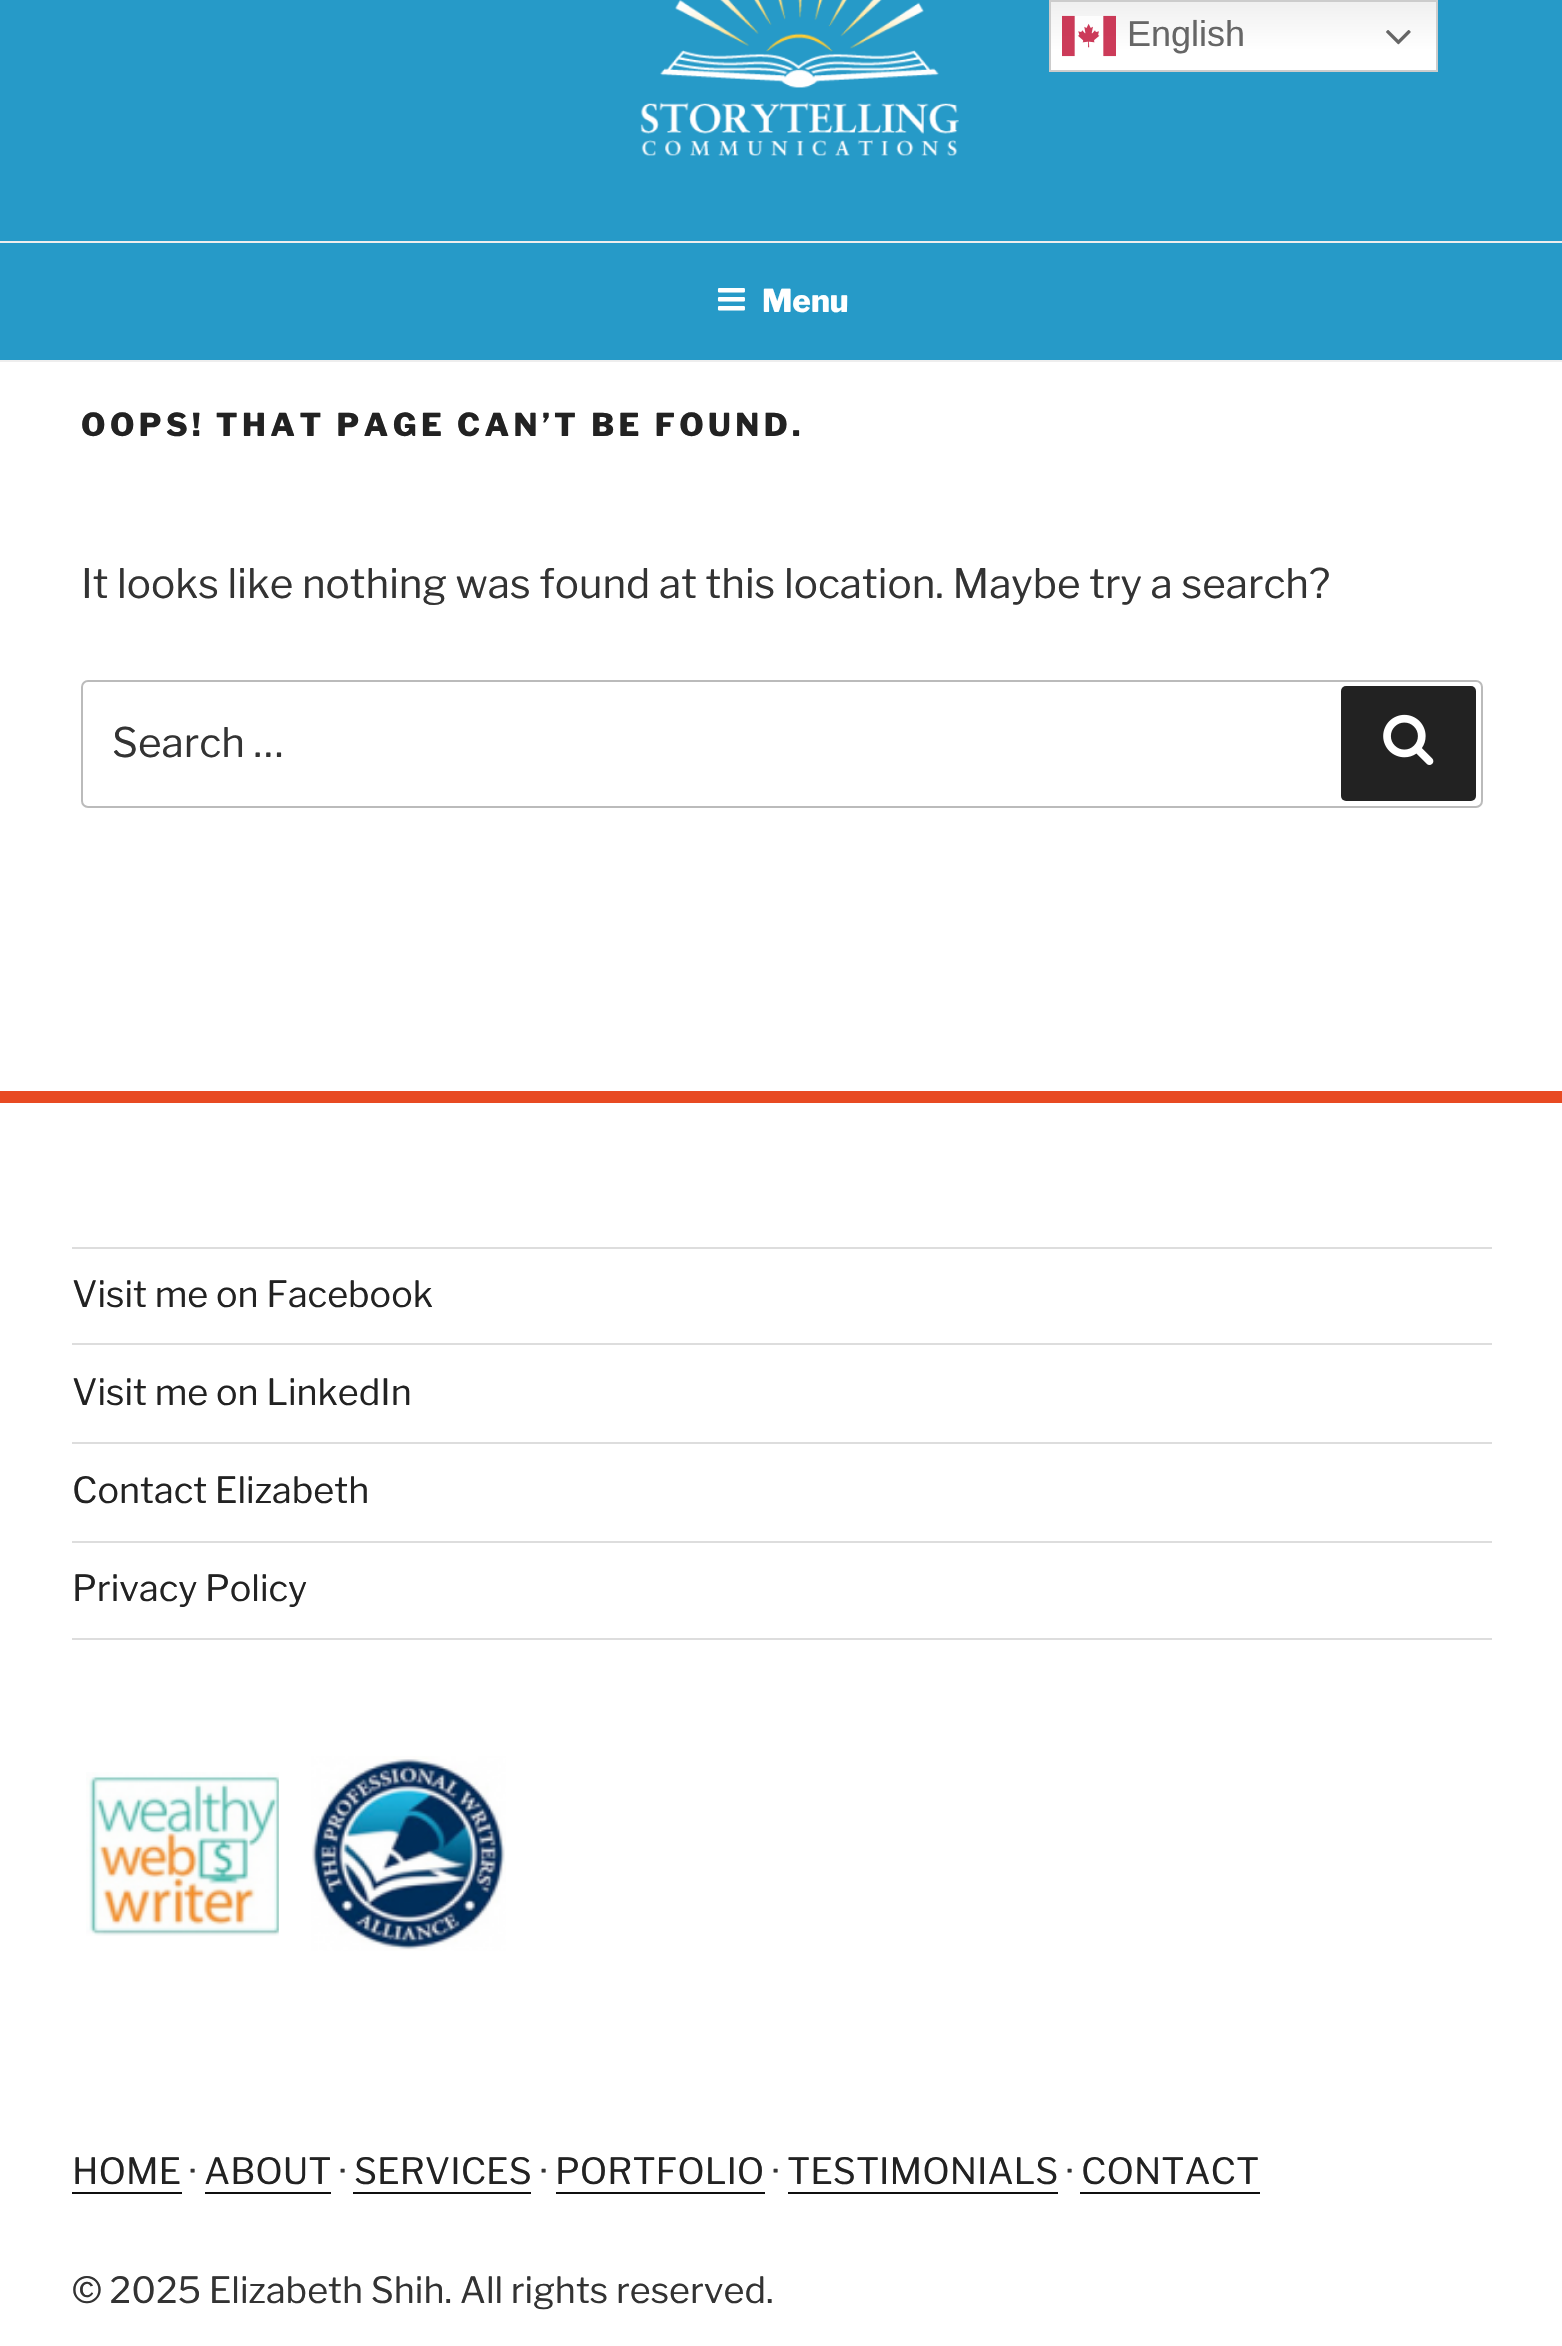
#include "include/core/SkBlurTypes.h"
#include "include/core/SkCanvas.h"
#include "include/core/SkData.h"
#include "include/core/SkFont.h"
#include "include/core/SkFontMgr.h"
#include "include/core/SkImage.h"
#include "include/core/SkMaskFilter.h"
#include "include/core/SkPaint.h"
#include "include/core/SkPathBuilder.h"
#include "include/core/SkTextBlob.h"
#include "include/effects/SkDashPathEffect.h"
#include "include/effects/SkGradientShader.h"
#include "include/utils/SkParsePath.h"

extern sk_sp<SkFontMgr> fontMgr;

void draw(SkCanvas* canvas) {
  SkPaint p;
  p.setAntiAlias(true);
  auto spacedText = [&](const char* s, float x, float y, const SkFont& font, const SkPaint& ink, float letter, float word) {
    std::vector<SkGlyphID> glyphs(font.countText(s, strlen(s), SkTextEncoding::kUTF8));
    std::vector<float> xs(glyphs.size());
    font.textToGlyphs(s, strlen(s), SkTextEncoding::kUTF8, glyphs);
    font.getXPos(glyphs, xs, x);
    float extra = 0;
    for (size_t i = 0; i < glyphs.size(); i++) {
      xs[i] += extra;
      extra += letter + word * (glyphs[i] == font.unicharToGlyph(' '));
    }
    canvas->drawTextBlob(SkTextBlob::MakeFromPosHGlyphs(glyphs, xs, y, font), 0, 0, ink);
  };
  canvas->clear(SK_ColorWHITE);
  p.setColor(SkColorSetRGB(38, 154, 200));
  canvas->drawRect(SkRect::MakeLTRB(0, 0, 1562, 241), p);
  {
    const SkColor colors[] = {SkColorSetRGB(239, 239, 239), SK_ColorWHITE};
    const float stops[] = {0, 0.7f};
    const SkPoint ends[] = {{1243, 0}, {1243, 72}};
    p.setShader(SkGradientShader::MakeLinear(ends, colors, stops, 2, SkTileMode::kClamp));
    p.setAlpha(255);
  }
  canvas->drawRect(SkRect::MakeLTRB(1051, 2, 1436, 70), p);
  p.setStyle(SkPaint::kStroke_Style);
  p.setStrokeWidth(2);
  p.setShader(nullptr);
  p.setColor(SkColorSetRGB(204, 204, 204));
  canvas->drawRect(SkRect::MakeLTRB(1050, 1, 1437, 71), p);
  canvas->drawImageRect(SkImages::DeferredFromEncodedData(SkData::MakeFromFileName("images/1.png")), SkRect::MakeLTRB(1062, 15, 1116, 57), SkSamplingOptions());
  canvas->drawImageRect(SkImages::DeferredFromEncodedData(SkData::MakeFromFileName("images/2.png")), SkRect::MakeLTRB(1386, 30, 1411, 45), SkSamplingOptions());
  canvas->drawImageRect(SkImages::DeferredFromEncodedData(SkData::MakeFromFileName("images/3.png")), SkRect::MakeLTRB(640, 0, 959, 156), SkSamplingOptions());
  p.setStyle(SkPaint::kFill_Style);
  p.setColor(SkColorSetRGB(38, 154, 200));
  canvas->drawRect(SkRect::MakeLTRB(0, 243, 1562, 360), p);
  p.setColor(SkColorSetRGB(238, 238, 238));
  canvas->drawRect(SkRect::MakeLTRB(0, 241, 1562, 243), p);
  canvas->drawRect(SkRect::MakeLTRB(0, 360, 1562, 362), p);
  canvas->drawImageRect(SkImages::DeferredFromEncodedData(SkData::MakeFromFileName("images/4.png")), SkRect::MakeLTRB(717, 288, 745, 311), SkSamplingOptions());
  p.setStyle(SkPaint::kStroke_Style);
  p.setColor(SkColorSetRGB(187, 187, 187));
  canvas->drawRoundRect(SkRect::MakeLTRB(82, 681, 1482, 807), 6, 6, p);
  p.setStyle(SkPaint::kFill_Style);
  p.setColor(SkColorSetRGB(34, 34, 34));
  canvas->drawRoundRect(SkRect::MakeLTRB(1341, 686, 1476, 801), 5, 5, p);
  canvas->drawImageRect(SkImages::DeferredFromEncodedData(SkData::MakeFromFileName("images/5.png")), SkRect::MakeLTRB(1383, 714, 1434, 765), SkSamplingOptions());
  p.setColor(SkColorSetRGB(232, 74, 34));
  canvas->drawRect(SkRect::MakeLTRB(0, 1091, 1562, 1103), p);
  p.setColor(SkColorSetRGB(221, 221, 221));
  canvas->drawRect(SkRect::MakeLTRB(72, 1247, 1492, 1249), p);
  canvas->drawRect(SkRect::MakeLTRB(72, 1343, 1492, 1345), p);
  canvas->drawRect(SkRect::MakeLTRB(72, 1442, 1492, 1444), p);
  canvas->drawRect(SkRect::MakeLTRB(72, 1541, 1492, 1543), p);
  canvas->drawRect(SkRect::MakeLTRB(72, 1638, 1492, 1640), p);
  canvas->drawImageRect(SkImages::DeferredFromEncodedData(SkData::MakeFromFileName("images/6.png")), SkRect::MakeLTRB(86, 1772, 279, 1936), SkSamplingOptions());
  canvas->drawImageRect(SkImages::DeferredFromEncodedData(SkData::MakeFromFileName("images/7.png")), SkRect::MakeLTRB(311, 1756, 506, 1951), SkSamplingOptions());
  p.setColor(SkColorSetRGB(15, 15, 15));
  canvas->drawRect(SkRect::MakeLTRB(72, 2192, 182, 2194), p);
  canvas->drawRect(SkRect::MakeLTRB(205, 2192, 331, 2194), p);
  canvas->drawRect(SkRect::MakeLTRB(353, 2192, 531, 2194), p);
  canvas->drawRect(SkRect::MakeLTRB(556, 2192, 765, 2194), p);
  canvas->drawRect(SkRect::MakeLTRB(788, 2192, 1058, 2194), p);
  canvas->drawRect(SkRect::MakeLTRB(1080, 2192, 1260, 2194), p);
  SkFont font1(fontMgr->matchFamilyStyle("Liberation Sans", SkFontStyle::Normal()), 36);
  font1.setSubpixel(true);
  p.setColor(SkColorSetRGB(102, 102, 102));
  canvas->drawString("English", 1127, 46, font1, p);
  SkFont font2(fontMgr->matchFamilyStyle("Libre Franklin", SkFontStyle(100, SkFontStyle::kNormal_Width, SkFontStyle::kUpright_Slant)), 31.5f);
  font2.setSubpixel(true);
  p.setColor(SK_ColorWHITE);
  canvas->drawString("Menu", 762, 312, font2, p);
  p.setColor(SkColorSetRGB(34, 34, 34));
  spacedText("OOPS! THAT PAGE CAN’T BE FOUND.", 81, 436, font2, p, 4.4f, 0);
  SkFont font3(fontMgr->matchFamilyStyle("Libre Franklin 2", SkFontStyle(100, SkFontStyle::kNormal_Width, SkFontStyle::kUpright_Slant)), 40.5f);
  font3.setSubpixel(true);
  p.setColor(SkColorSetRGB(51, 51, 51));
  canvas->drawString("It looks like nothing was found at this location. Maybe try a search?", 81, 598, font3, p);
  canvas->drawString("Search …", 112, 757, font3, p);
  SkFont font4(fontMgr->matchFamilyStyle("Libre Franklin 2", SkFontStyle(100, SkFontStyle::kNormal_Width, SkFontStyle::kUpright_Slant)), 36);
  font4.setSubpixel(true);
  p.setColor(SkColorSetRGB(34, 34, 34));
  canvas->drawString("Visit me on Facebook", 72, 1307, font4, p);
  canvas->drawString("Visit me on LinkedIn", 72, 1405, font4, p);
  canvas->drawString("Contact Elizabeth", 72, 1503, font4, p);
  canvas->drawString("Privacy Policy", 72, 1601, font4, p);
  canvas->drawString("HOME", 72, 2184, font4, p);
  p.setColor(SkColorSetRGB(51, 51, 51));
  canvas->drawString("·", 189, 2184, font4, p);
  p.setColor(SkColorSetRGB(34, 34, 34));
  canvas->drawString("ABOUT", 204, 2184, font4, p);
  p.setColor(SkColorSetRGB(51, 51, 51));
  canvas->drawString("·", 339, 2184, font4, p);
  p.setColor(SkColorSetRGB(34, 34, 34));
  canvas->drawString("SERVICES", 354, 2184, font4, p);
  p.setColor(SkColorSetRGB(51, 51, 51));
  canvas->drawString("·", 540, 2184, font4, p);
  p.setColor(SkColorSetRGB(34, 34, 34));
  canvas->drawString("PORTFOLIO", 555, 2184, font4, p);
  p.setColor(SkColorSetRGB(51, 51, 51));
  canvas->drawString("·", 772, 2184, font4, p);
  p.setColor(SkColorSetRGB(34, 34, 34));
  canvas->drawString("TESTIMONIALS", 787, 2184, font4, p);
  p.setColor(SkColorSetRGB(51, 51, 51));
  canvas->drawString("·", 1066, 2184, font4, p);
  p.setColor(SkColorSetRGB(34, 34, 34));
  canvas->drawString("CONTACT", 1081, 2184, font4, p);
  p.setColor(SkColorSetRGB(51, 51, 51));
  canvas->drawString("© 2025 Elizabeth Shih. All rights reserved.", 72, 2303, font4, p);
}
